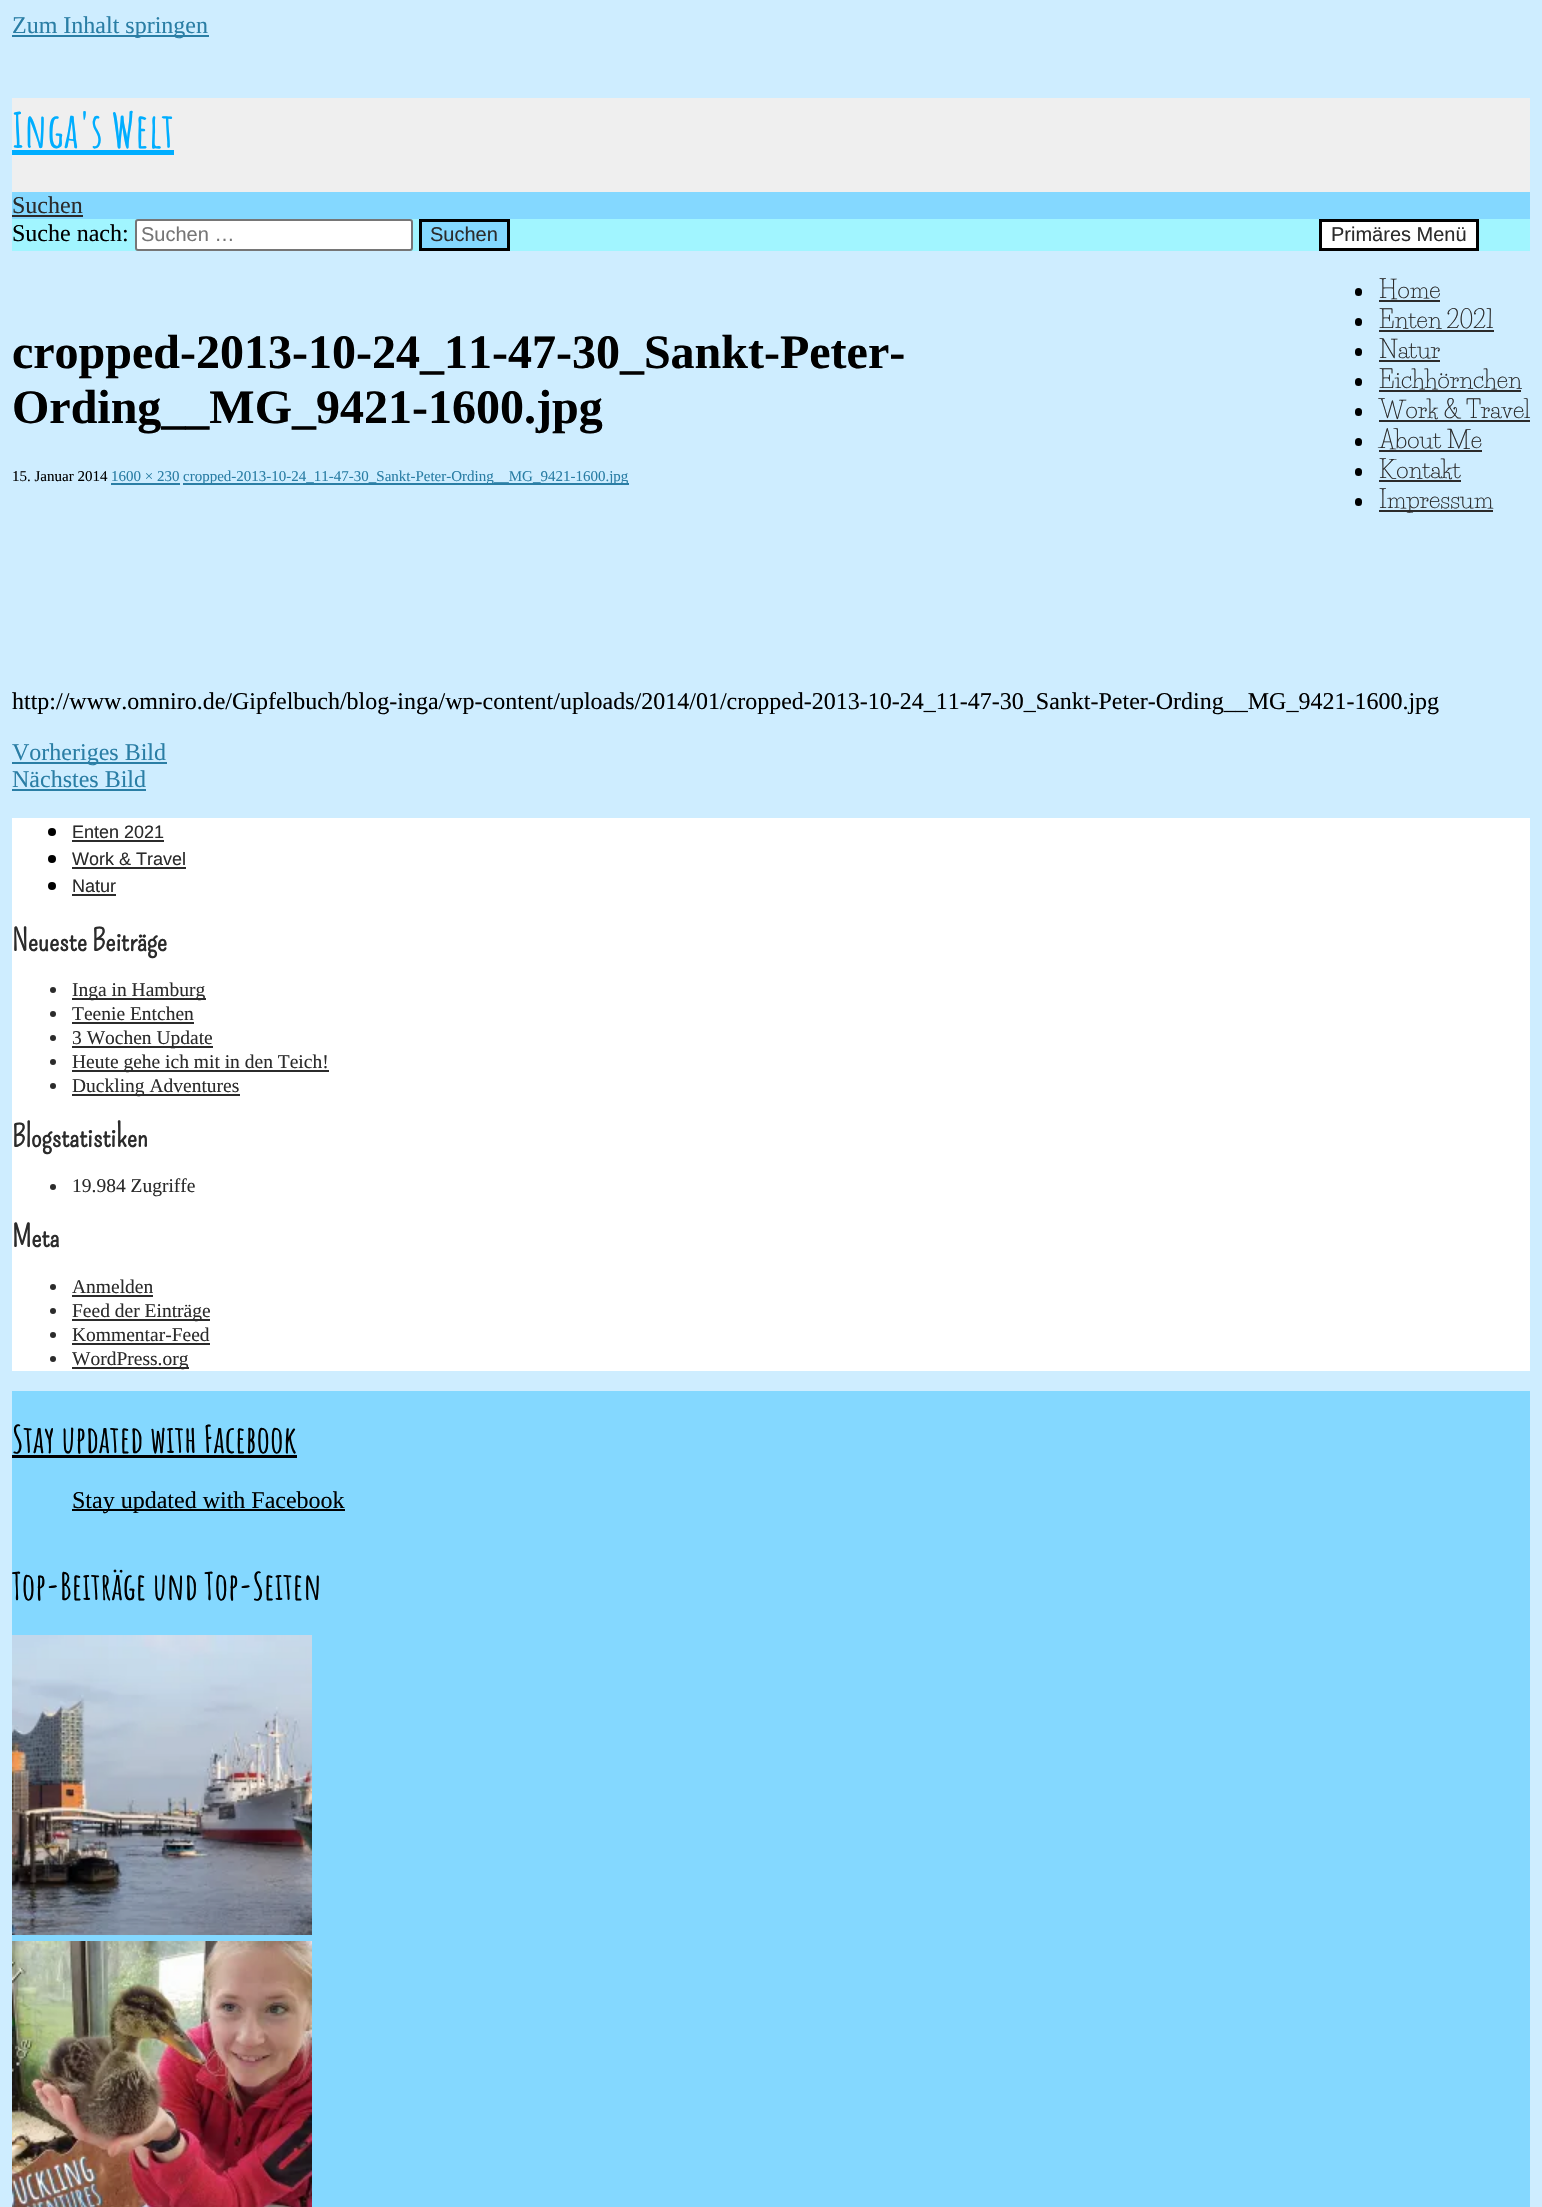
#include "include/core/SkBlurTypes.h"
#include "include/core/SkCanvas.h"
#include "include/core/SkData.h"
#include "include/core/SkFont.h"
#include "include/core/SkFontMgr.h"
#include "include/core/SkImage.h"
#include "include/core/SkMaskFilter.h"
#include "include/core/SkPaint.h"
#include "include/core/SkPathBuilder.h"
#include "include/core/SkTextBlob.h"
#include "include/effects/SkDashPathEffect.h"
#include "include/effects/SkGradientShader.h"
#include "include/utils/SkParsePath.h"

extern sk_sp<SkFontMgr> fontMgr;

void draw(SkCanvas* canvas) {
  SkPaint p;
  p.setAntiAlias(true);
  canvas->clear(SkColorSetRGB(206, 237, 255));
  p.setColor(SkColorSetRGB(42, 126, 165));
  canvas->drawRect(SkRect::MakeLTRB(12, 35, 209, 37), p);
  p.setColor(SkColorSetRGB(239, 239, 239));
  canvas->drawRect(SkRect::MakeLTRB(12, 98, 1530, 192), p);
  p.setColor(SkColorSetRGB(0, 174, 255));
  canvas->drawRect(SkRect::MakeLTRB(12, 150, 174, 155), p);
  p.setColor(SkColorSetRGB(132, 216, 255));
  canvas->drawRect(SkRect::MakeLTRB(12, 192, 1530, 219), p);
  p.setColor(SkColorSetRGB(43, 43, 43));
  canvas->drawRect(SkRect::MakeLTRB(12, 215, 83, 217), p);
  p.setColor(SkColorSetRGB(161, 245, 255));
  canvas->drawRect(SkRect::MakeLTRB(12, 219, 1530, 251), p);
  p.setColor(SK_ColorWHITE);
  canvas->drawRect(SkRect::MakeLTRB(1320.5f, 220.5f, 1477.5f, 249.5f), p);
  p.setStyle(SkPaint::kStroke_Style);
  p.setStrokeWidth(3);
  p.setColor(SK_ColorBLACK);
  canvas->drawRect(SkRect::MakeLTRB(1320.5f, 220.5f, 1477.5f, 249.5f), p);
  p.setStyle(SkPaint::kFill_Style);
  canvas->drawRoundRect(SkRect::MakeLTRB(1355, 288, 1362, 296), 3.5f, 3.5f, p);
  p.setColor(SkColorSetRGB(43, 43, 43));
  canvas->drawRect(SkRect::MakeLTRB(1379, 300, 1440, 302), p);
  p.setColor(SK_ColorBLACK);
  canvas->drawRoundRect(SkRect::MakeLTRB(1355, 318, 1362, 326), 3.5f, 3.5f, p);
  p.setColor(SkColorSetRGB(43, 43, 43));
  canvas->drawRect(SkRect::MakeLTRB(1379, 330, 1494, 332), p);
  p.setColor(SK_ColorBLACK);
  canvas->drawRoundRect(SkRect::MakeLTRB(1355, 348, 1362, 356), 3.5f, 3.5f, p);
  p.setColor(SkColorSetRGB(43, 43, 43));
  canvas->drawRect(SkRect::MakeLTRB(1379, 360, 1440, 362), p);
  p.setColor(SK_ColorBLACK);
  canvas->drawRoundRect(SkRect::MakeLTRB(1355, 378, 1362, 386), 3.5f, 3.5f, p);
  p.setColor(SkColorSetRGB(43, 43, 43));
  canvas->drawRect(SkRect::MakeLTRB(1379, 390, 1521, 392), p);
  p.setColor(SK_ColorBLACK);
  canvas->drawRoundRect(SkRect::MakeLTRB(1355, 408, 1362, 416), 3.5f, 3.5f, p);
  p.setColor(SkColorSetRGB(43, 43, 43));
  canvas->drawRect(SkRect::MakeLTRB(1379, 420, 1530, 422), p);
  p.setColor(SK_ColorBLACK);
  canvas->drawRoundRect(SkRect::MakeLTRB(1355, 438, 1362, 446), 3.5f, 3.5f, p);
  p.setColor(SkColorSetRGB(43, 43, 43));
  canvas->drawRect(SkRect::MakeLTRB(1379, 450, 1482, 452), p);
  p.setColor(SK_ColorBLACK);
  canvas->drawRoundRect(SkRect::MakeLTRB(1355, 468, 1362, 476), 3.5f, 3.5f, p);
  p.setColor(SkColorSetRGB(43, 43, 43));
  canvas->drawRect(SkRect::MakeLTRB(1379, 480, 1461, 482), p);
  p.setColor(SK_ColorBLACK);
  canvas->drawRoundRect(SkRect::MakeLTRB(1355, 498, 1362, 506), 3.5f, 3.5f, p);
  p.setColor(SkColorSetRGB(43, 43, 43));
  canvas->drawRect(SkRect::MakeLTRB(1379, 510, 1493, 512), p);
  p.setColor(SK_ColorWHITE);
  canvas->drawRoundRect(SkRect::MakeLTRB(136, 220, 412, 250), 2, 2, p);
  p.setStyle(SkPaint::kStroke_Style);
  p.setStrokeWidth(2);
  p.setColor(SkColorSetRGB(118, 118, 118));
  canvas->drawRoundRect(SkRect::MakeLTRB(136, 220, 412, 250), 2, 2, p);
  p.setStyle(SkPaint::kFill_Style);
  p.setColor(SkColorSetRGB(132, 216, 255));
  canvas->drawRect(SkRect::MakeLTRB(420.5f, 220.5f, 508.5f, 249.5f), p);
  p.setStyle(SkPaint::kStroke_Style);
  p.setStrokeWidth(3);
  p.setColor(SK_ColorBLACK);
  canvas->drawRect(SkRect::MakeLTRB(420.5f, 220.5f, 508.5f, 249.5f), p);
  p.setStyle(SkPaint::kFill_Style);
  p.setColor(SkColorSetRGB(42, 126, 165));
  canvas->drawRect(SkRect::MakeLTRB(111, 483, 180, 485), p);
  canvas->drawRect(SkRect::MakeLTRB(183, 483, 629, 485), p);
  canvas->drawRect(SkRect::MakeLTRB(12, 762, 167, 764), p);
  canvas->drawRect(SkRect::MakeLTRB(12, 789, 146, 791), p);
  p.setColor(SK_ColorWHITE);
  canvas->drawRect(SkRect::MakeLTRB(12, 818, 1530, 1371), p);
  p.setColor(SK_ColorBLACK);
  canvas->drawCircle(52, 832, 4, p);
  p.setColor(SkColorSetRGB(43, 43, 43));
  canvas->drawRect(SkRect::MakeLTRB(72, 840, 164, 842), p);
  p.setColor(SK_ColorBLACK);
  canvas->drawCircle(52, 859, 4, p);
  p.setColor(SkColorSetRGB(43, 43, 43));
  canvas->drawRect(SkRect::MakeLTRB(72, 867, 186, 869), p);
  p.setColor(SK_ColorBLACK);
  canvas->drawCircle(52, 886, 4, p);
  p.setColor(SkColorSetRGB(43, 43, 43));
  canvas->drawRect(SkRect::MakeLTRB(72, 894, 116, 896), p);
  canvas->drawCircle(53, 990, 3, p);
  canvas->drawRect(SkRect::MakeLTRB(72, 998, 206, 1000), p);
  canvas->drawCircle(53, 1014, 3, p);
  canvas->drawRect(SkRect::MakeLTRB(72, 1022, 194, 1024), p);
  canvas->drawCircle(53, 1038, 3, p);
  canvas->drawRect(SkRect::MakeLTRB(72, 1046, 213, 1048), p);
  canvas->drawCircle(53, 1062, 3, p);
  canvas->drawRect(SkRect::MakeLTRB(72, 1070, 329, 1072), p);
  canvas->drawCircle(53, 1086, 3, p);
  canvas->drawRect(SkRect::MakeLTRB(72, 1094, 240, 1096), p);
  canvas->drawCircle(53, 1187, 3, p);
  canvas->drawCircle(53, 1287, 3, p);
  canvas->drawRect(SkRect::MakeLTRB(72, 1295, 153, 1297), p);
  canvas->drawCircle(53, 1311, 3, p);
  canvas->drawRect(SkRect::MakeLTRB(72, 1319, 210, 1321), p);
  canvas->drawCircle(53, 1335, 3, p);
  canvas->drawRect(SkRect::MakeLTRB(72, 1343, 210, 1345), p);
  canvas->drawCircle(53, 1359, 3, p);
  canvas->drawRect(SkRect::MakeLTRB(72, 1367, 189, 1369), p);
  p.setColor(SkColorSetRGB(132, 216, 255));
  canvas->drawRect(SkRect::MakeLTRB(12, 1391, 1530, 2207), p);
  p.setColor(SK_ColorBLACK);
  canvas->drawRect(SkRect::MakeLTRB(12, 1455, 297, 1458), p);
  canvas->drawRect(SkRect::MakeLTRB(72, 1509, 345, 1511), p);
  canvas->drawImageRect(SkImages::DeferredFromEncodedData(SkData::MakeFromFileName("images/1.png")), SkRect::MakeLTRB(12, 1635, 312, 1935), SkSamplingOptions());
  canvas->drawImageRect(SkImages::DeferredFromEncodedData(SkData::MakeFromFileName("images/2.png")), SkRect::MakeLTRB(12, 1941, 312, 2207), SkSamplingOptions());
  SkFont font1(fontMgr->matchFamilyStyle("Liberation Serif", SkFontStyle::Normal()), 24);
  font1.setSubpixel(true);
  p.setColor(SkColorSetRGB(42, 126, 165));
  canvas->drawString("Zum Inhalt springen", 12, 33, font1, p);
  SkFont font2(fontMgr->matchFamilyStyle("Amatic SC", SkFontStyle::Bold()), 48);
  font2.setSubpixel(true);
  p.setColor(SkColorSetRGB(0, 174, 255));
  canvas->drawString("Inga's Welt", 12, 148, font2, p);
  p.setColor(SkColorSetRGB(43, 43, 43));
  canvas->drawString("Suchen", 12, 213, font1, p);
  SkFont font3(fontMgr->matchFamilyStyle("Liberation Sans", SkFontStyle::Normal()), 20);
  font3.setSubpixel(true);
  canvas->drawString("Primäres Menü", 1331, 241, font3, p);
  SkFont font4(fontMgr->matchFamilyStyle("Life Savers", SkFontStyle::Normal()), 24);
  font4.setSubpixel(true);
  canvas->drawString("Home", 1379, 298, font4, p);
  canvas->drawString("Enten 2021", 1379, 328, font4, p);
  canvas->drawString("Natur", 1379, 358, font4, p);
  canvas->drawString("Eichhörnchen", 1379, 388, font4, p);
  canvas->drawString("Work & Travel", 1379, 418, font4, p);
  canvas->drawString("About Me", 1379, 448, font4, p);
  canvas->drawString("Kontakt", 1379, 478, font4, p);
  canvas->drawString("Impressum", 1379, 508, font4, p);
  p.setColor(SK_ColorBLACK);
  canvas->drawString("Suche nach:", 12, 241, font1, p);
  p.setColor(SkColorSetRGB(117, 117, 117));
  canvas->drawString("Suchen …", 141, 241, font3, p);
  p.setColor(SkColorSetRGB(43, 43, 43));
  canvas->drawString("Suchen", 430, 241, font3, p);
  SkFont font5(fontMgr->matchFamilyStyle("Liberation Serif", SkFontStyle::Bold()), 48);
  font5.setSubpixel(true);
  p.setColor(SK_ColorBLACK);
  canvas->drawString("cropped-2013-10-24_11-47-30_Sankt-Peter-", 12, 368, font5, p);
  canvas->drawString("Ording__MG_9421-1600.jpg", 12, 423, font5, p);
  SkFont font6(fontMgr->matchFamilyStyle("Liberation Serif", SkFontStyle::Normal()), 15);
  font6.setSubpixel(true);
  canvas->drawString("15. Januar 2014", 12, 481, font6, p);
  p.setColor(SkColorSetRGB(42, 126, 165));
  canvas->drawString("1600 × 230", 111, 481, font6, p);
  canvas->drawString("cropped-2013-10-24_11-47-30_Sankt-Peter-Ording__MG_9421-1600.jpg", 183, 481, font6, p);
  p.setColor(SK_ColorBLACK);
  canvas->drawString("http://www.omniro.de/Gipfelbuch/blog-inga/wp-content/uploads/2014/01/cropped-2013-10-24_11-47-30_Sankt-Peter-Ording__MG_9421-1600.jpg", 12, 709, font1, p);
  p.setColor(SkColorSetRGB(42, 126, 165));
  canvas->drawString("Vorheriges Bild", 12, 760, font1, p);
  canvas->drawString("Nächstes Bild", 12, 787, font1, p);
  SkFont font7(fontMgr->matchFamilyStyle("Liberation Sans", SkFontStyle::Normal()), 18);
  font7.setSubpixel(true);
  p.setColor(SkColorSetRGB(43, 43, 43));
  canvas->drawString("Enten 2021", 72, 838, font7, p);
  canvas->drawString("Work & Travel", 72, 865, font7, p);
  canvas->drawString("Natur", 72, 892, font7, p);
  SkFont font8(fontMgr->matchFamilyStyle("Pompiere", SkFontStyle::Bold()), 30);
  font8.setSubpixel(true);
  canvas->drawString("Neueste Beiträge", 12, 951, font8, p);
  SkFont font9(fontMgr->matchFamilyStyle("Liberation Serif", SkFontStyle::Normal()), 19.5f);
  font9.setSubpixel(true);
  canvas->drawString("Inga in Hamburg", 72, 996, font9, p);
  canvas->drawString("Teenie Entchen", 72, 1020, font9, p);
  canvas->drawString("3 Wochen Update", 72, 1044, font9, p);
  canvas->drawString("Heute gehe ich mit in den Teich!", 72, 1068, font9, p);
  canvas->drawString("Duckling Adventures", 72, 1092, font9, p);
  canvas->drawString("Blogstatistiken", 12, 1147, font8, p);
  canvas->drawString("19.984 Zugriffe", 72, 1192, font9, p);
  canvas->drawString("Meta", 12, 1247, font8, p);
  canvas->drawString("Anmelden", 72, 1293, font9, p);
  canvas->drawString("Feed der Einträge", 72, 1317, font9, p);
  canvas->drawString("Kommentar-Feed", 72, 1341, font9, p);
  canvas->drawString("WordPress.org", 72, 1365, font9, p);
  SkFont font10(fontMgr->matchFamilyStyle("Amatic SC", SkFontStyle::Bold()), 37.5f);
  font10.setSubpixel(true);
  p.setColor(SK_ColorBLACK);
  canvas->drawString("Stay updated with Facebook", 12, 1453, font10, p);
  canvas->drawString("Stay updated with Facebook", 72, 1508, font1, p);
  canvas->drawString("Top-Beiträge und Top-Seiten", 12, 1600, font10, p);
}
